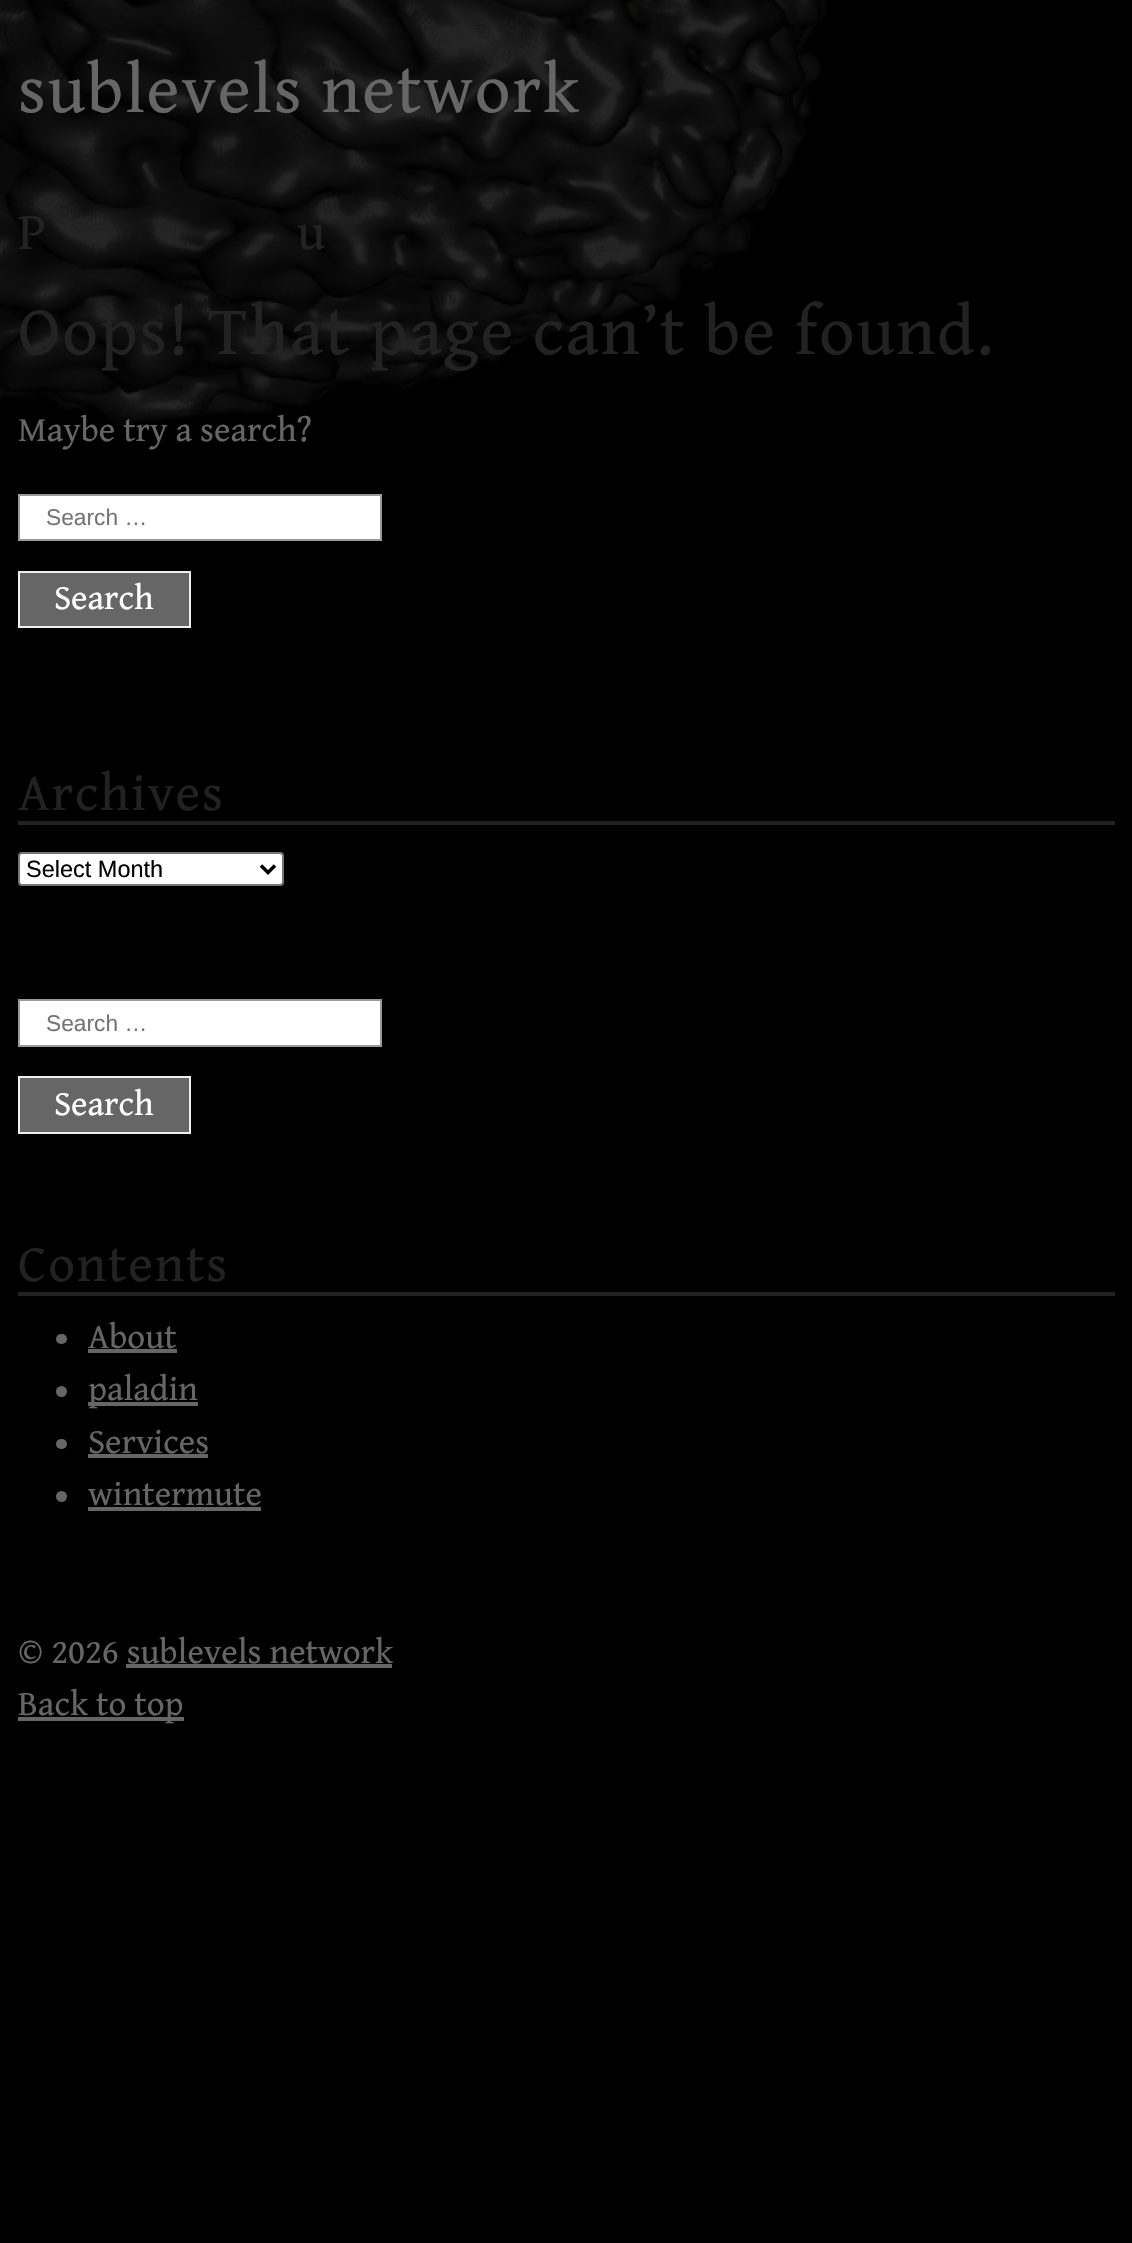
#include "include/core/SkBlurTypes.h"
#include "include/core/SkCanvas.h"
#include "include/core/SkData.h"
#include "include/core/SkFont.h"
#include "include/core/SkFontMgr.h"
#include "include/core/SkImage.h"
#include "include/core/SkMaskFilter.h"
#include "include/core/SkPaint.h"
#include "include/core/SkPathBuilder.h"
#include "include/core/SkTextBlob.h"
#include "include/effects/SkDashPathEffect.h"
#include "include/effects/SkGradientShader.h"
#include "include/utils/SkParsePath.h"

extern sk_sp<SkFontMgr> fontMgr;

void draw(SkCanvas* canvas) {
  SkPaint p;
  p.setAntiAlias(true);
  auto spacedText = [&](const char* s, float x, float y, const SkFont& font, const SkPaint& ink, float letter, float word) {
    std::vector<SkGlyphID> glyphs(font.countText(s, strlen(s), SkTextEncoding::kUTF8));
    std::vector<float> xs(glyphs.size());
    font.textToGlyphs(s, strlen(s), SkTextEncoding::kUTF8, glyphs);
    font.getXPos(glyphs, xs, x);
    float extra = 0;
    for (size_t i = 0; i < glyphs.size(); i++) {
      xs[i] += extra;
      extra += letter + word * (glyphs[i] == font.unicharToGlyph(' '));
    }
    canvas->drawTextBlob(SkTextBlob::MakeFromPosHGlyphs(glyphs, xs, y, font), 0, 0, ink);
  };
  canvas->clear(SK_ColorBLACK);
  canvas->drawImageRect(SkImages::DeferredFromEncodedData(SkData::MakeFromFileName("images/1.png")), SkRect::MakeLTRB(0, 0, 826, 425), SkSamplingOptions());
  p.setColor(SK_ColorWHITE);
  canvas->drawRect(SkRect::MakeLTRB(19, 495, 381, 540), p);
  p.setStyle(SkPaint::kStroke_Style);
  p.setStrokeWidth(2);
  p.setColor(SkColorSetRGB(153, 153, 153));
  canvas->drawRect(SkRect::MakeLTRB(19, 495, 381, 540), p);
  p.setStyle(SkPaint::kFill_Style);
  p.setColor(SkColorSetRGB(102, 102, 102));
  canvas->drawRect(SkRect::MakeLTRB(19, 572, 190, 627), p);
  p.setStyle(SkPaint::kStroke_Style);
  p.setColor(SkColorSetRGB(238, 238, 238));
  canvas->drawRect(SkRect::MakeLTRB(19, 572, 190, 627), p);
  p.setStyle(SkPaint::kFill_Style);
  p.setColor(SkColorSetRGB(34, 34, 34));
  canvas->drawRect(SkRect::MakeLTRB(18, 821, 1115, 825), p);
  p.setColor(SK_ColorWHITE);
  canvas->drawRoundRect(SkRect::MakeLTRB(19, 853, 283, 885), 3, 3, p);
  p.setStyle(SkPaint::kStroke_Style);
  p.setColor(SkColorSetRGB(118, 118, 118));
  canvas->drawRoundRect(SkRect::MakeLTRB(19, 853, 283, 885), 3, 3, p);
  p.setStrokeWidth(3.5f);
  p.setColor(SK_ColorBLACK);
  canvas->drawPath(SkPathBuilder().moveTo(261, 865.5f).lineTo(268, 872.5f).lineTo(275, 865.5f).detach(), p);
  p.setStyle(SkPaint::kFill_Style);
  p.setColor(SK_ColorWHITE);
  canvas->drawRect(SkRect::MakeLTRB(19, 1000, 381, 1046), p);
  p.setStyle(SkPaint::kStroke_Style);
  p.setStrokeWidth(2);
  p.setColor(SkColorSetRGB(153, 153, 153));
  canvas->drawRect(SkRect::MakeLTRB(19, 1000, 381, 1046), p);
  p.setStyle(SkPaint::kFill_Style);
  p.setColor(SkColorSetRGB(102, 102, 102));
  canvas->drawRect(SkRect::MakeLTRB(19, 1077, 190, 1133), p);
  p.setStyle(SkPaint::kStroke_Style);
  p.setColor(SkColorSetRGB(238, 238, 238));
  canvas->drawRect(SkRect::MakeLTRB(19, 1077, 190, 1133), p);
  p.setStyle(SkPaint::kFill_Style);
  p.setColor(SkColorSetRGB(34, 34, 34));
  canvas->drawRect(SkRect::MakeLTRB(18, 1292, 1115, 1296), p);
  p.setColor(SkColorSetRGB(102, 102, 102));
  canvas->drawRoundRect(SkRect::MakeLTRB(56, 1334, 67, 1344), 5, 5, p);
  canvas->drawRect(SkRect::MakeLTRB(88, 1349, 177, 1353), p);
  canvas->drawCircle(61.5f, 1391.5f, 5.5f, p);
  canvas->drawRect(SkRect::MakeLTRB(88, 1402, 198, 1406), p);
  canvas->drawRoundRect(SkRect::MakeLTRB(56, 1439, 67, 1449), 5, 5, p);
  canvas->drawRect(SkRect::MakeLTRB(88, 1454, 208, 1458), p);
  canvas->drawCircle(61.5f, 1496.5f, 5.5f, p);
  canvas->drawRect(SkRect::MakeLTRB(88, 1507, 261, 1511), p);
  canvas->drawRect(SkRect::MakeLTRB(126, 1664, 392, 1668), p);
  canvas->drawRect(SkRect::MakeLTRB(18, 1717, 184, 1721), p);
  SkFont font1(fontMgr->matchFamilyStyle("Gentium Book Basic", SkFontStyle::Normal()), 70);
  font1.setSubpixel(true);
  spacedText("sublevels network", 18, 112, font1, p, 1.75f, 0);
  SkFont font2(fontMgr->matchFamilyStyle("Gentium Book Basic", SkFontStyle::Normal()), 52.5f);
  font2.setSubpixel(true);
  p.setColor(SkColorSetRGB(34, 34, 34));
  spacedText("P", 18, 249, font2, p, 1.75f, 0);
  spacedText("u", 297, 249, font2, p, 1.75f, 0);
  spacedText("Oops! That page can’t be found.", 18, 354, font1, p, 1.75f, 0);
  SkFont font3(fontMgr->matchFamilyStyle("Gentium Book Basic", SkFontStyle::Normal()), 35);
  font3.setSubpixel(true);
  p.setColor(SkColorSetRGB(102, 102, 102));
  canvas->drawString("Maybe try a search?", 18, 441, font3, p);
  SkFont font4(fontMgr->matchFamilyStyle("Liberation Sans", SkFontStyle::Normal()), 22.75f);
  font4.setSubpixel(true);
  p.setColor(SkColorSetRGB(117, 117, 117));
  canvas->drawString("Search …", 46, 525, font4, p);
  p.setColor(SK_ColorWHITE);
  canvas->drawString("Search", 54, 609, font3, p);
  p.setColor(SkColorSetRGB(34, 34, 34));
  spacedText("Archives", 18, 810, font2, p, 1.75f, 0);
  SkFont font5(fontMgr->matchFamilyStyle("Liberation Sans", SkFontStyle::Normal()), 23.5f);
  font5.setSubpixel(true);
  p.setColor(SK_ColorBLACK);
  canvas->drawString("Select Month", 26, 877, font5, p);
  p.setColor(SkColorSetRGB(117, 117, 117));
  canvas->drawString("Search …", 46, 1031, font4, p);
  p.setColor(SK_ColorWHITE);
  canvas->drawString("Search", 54, 1115, font3, p);
  p.setColor(SkColorSetRGB(34, 34, 34));
  spacedText("Contents", 18, 1281, font2, p, 1.75f, 0);
  p.setColor(SkColorSetRGB(102, 102, 102));
  canvas->drawString("About", 88, 1348, font3, p);
  canvas->drawString("paladin", 88, 1400, font3, p);
  canvas->drawString("Services", 88, 1453, font3, p);
  canvas->drawString("wintermute", 88, 1505, font3, p);
  canvas->drawString("© 2026 sublevels network", 18, 1663, font3, p);
  canvas->drawString("Back to top", 18, 1715, font3, p);
}
